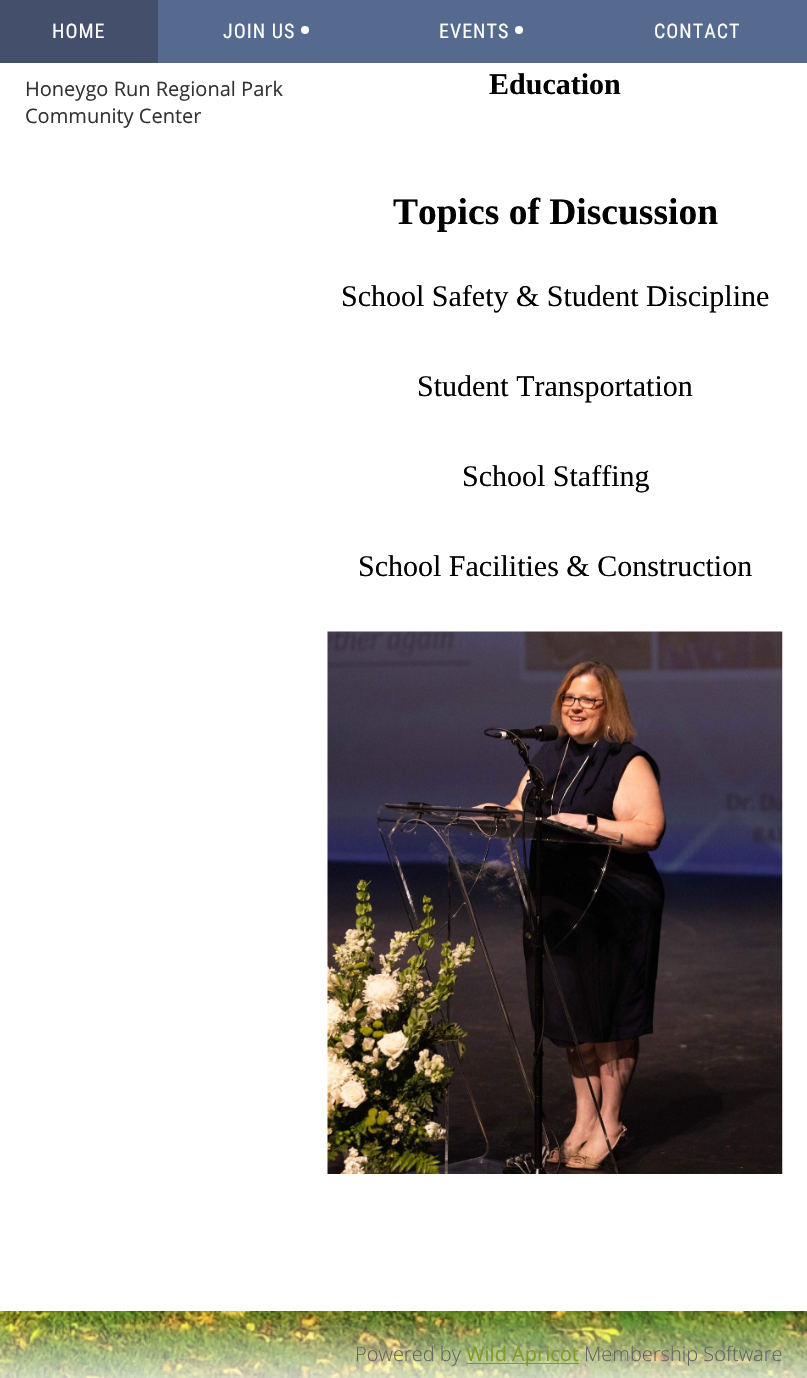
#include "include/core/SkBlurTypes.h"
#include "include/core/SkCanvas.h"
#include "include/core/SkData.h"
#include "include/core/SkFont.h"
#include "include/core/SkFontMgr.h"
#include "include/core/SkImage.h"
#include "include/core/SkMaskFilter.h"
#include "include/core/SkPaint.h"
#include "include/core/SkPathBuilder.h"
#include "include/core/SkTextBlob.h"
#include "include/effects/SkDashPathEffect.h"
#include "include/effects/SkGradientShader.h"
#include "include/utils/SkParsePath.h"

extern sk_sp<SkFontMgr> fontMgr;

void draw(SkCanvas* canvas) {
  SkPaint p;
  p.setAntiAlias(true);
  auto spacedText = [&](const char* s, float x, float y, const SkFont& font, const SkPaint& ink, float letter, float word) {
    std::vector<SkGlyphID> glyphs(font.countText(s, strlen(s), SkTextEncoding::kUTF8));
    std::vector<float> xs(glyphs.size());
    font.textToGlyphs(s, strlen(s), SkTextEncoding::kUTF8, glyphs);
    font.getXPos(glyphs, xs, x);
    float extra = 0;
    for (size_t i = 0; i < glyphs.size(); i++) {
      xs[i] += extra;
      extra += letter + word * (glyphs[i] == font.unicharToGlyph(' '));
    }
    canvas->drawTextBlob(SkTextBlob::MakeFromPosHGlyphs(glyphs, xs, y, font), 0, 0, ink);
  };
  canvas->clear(SK_ColorWHITE);
  canvas->drawImageRect(SkImages::DeferredFromEncodedData(SkData::MakeFromFileName("images/1.png")), SkRect::MakeLTRB(0, 1311, 807, 1378), SkSamplingOptions());
  p.setColor(SkColorSetRGB(85, 106, 142));
  canvas->drawRect(SkRect::MakeLTRB(158, 0, 807, 63), p);
  p.setColor(SkColorSetRGB(68, 80, 107));
  canvas->drawRect(SkRect::MakeLTRB(0, 0, 158, 63), p);
  p.setColor(SK_ColorWHITE);
  canvas->drawCircle(305, 30, 4, p);
  canvas->drawCircle(519, 30, 4, p);
  canvas->drawImageRect(SkImages::DeferredFromEncodedData(SkData::MakeFromFileName("images/2.png")), SkRect::MakeLTRB(327, 631, 783, 1174), SkSamplingOptions());
  p.setColor(SkColorSetRGB(131, 153, 36));
  canvas->drawRect(SkRect::MakeLTRB(466, 1363, 579, 1364), p);
  SkFont font1(fontMgr->matchFamilyStyle("Roboto Condensed", SkFontStyle::Normal()), 20);
  font1.setSubpixel(true);
  p.setColor(SK_ColorWHITE);
  spacedText("HOME", 52, 38, font1, p, 1, 0);
  spacedText("JOIN US", 223, 38, font1, p, 1, 0);
  spacedText("EVENTS", 439, 38, font1, p, 1, 0);
  spacedText("CONTACT", 654, 38, font1, p, 1, 0);
  SkFont font2(fontMgr->matchFamilyStyle("Open Sans", SkFontStyle::Normal()), 20);
  font2.setSubpixel(true);
  p.setColor(SkColorSetRGB(51, 51, 51));
  canvas->drawString("Honeygo Run Regional Park", 25, 96, font2, p);
  canvas->drawString("Community Center", 25, 123, font2, p);
  SkFont font3(fontMgr->matchFamilyStyle("Liberation Serif", SkFontStyle::Bold()), 30);
  font3.setSubpixel(true);
  p.setColor(SK_ColorBLACK);
  canvas->drawString("Education", 489, 94, font3, p);
  SkFont font4(fontMgr->matchFamilyStyle("Liberation Serif", SkFontStyle::Bold()), 37.5f);
  font4.setSubpixel(true);
  canvas->drawString("Topics of Discussion", 393, 224, font4, p);
  SkFont font5(fontMgr->matchFamilyStyle("Liberation Serif", SkFontStyle::Normal()), 30);
  font5.setSubpixel(true);
  canvas->drawString("School Safety & Student Discipline", 341, 306, font5, p);
  canvas->drawString("Student Transportation", 417, 396, font5, p);
  canvas->drawString("School Staffing", 462, 486, font5, p);
  canvas->drawString("School Facilities & Construction", 358, 576, font5, p);
  SkFont font6(fontMgr->matchFamilyStyle("Open Sans", SkFontStyle(300, SkFontStyle::kNormal_Width, SkFontStyle::kUpright_Slant)), 20);
  font6.setSubpixel(true);
  p.setColor(SkColorSetRGB(100, 100, 100));
  canvas->drawString("Powered by", 355, 1361, font6, p);
  p.setColor(SkColorSetRGB(131, 153, 36));
  canvas->drawString("Wild Apricot", 466, 1361, font2, p);
  p.setColor(SkColorSetRGB(100, 100, 100));
  canvas->drawString("Membership Software", 584, 1361, font6, p);
}
